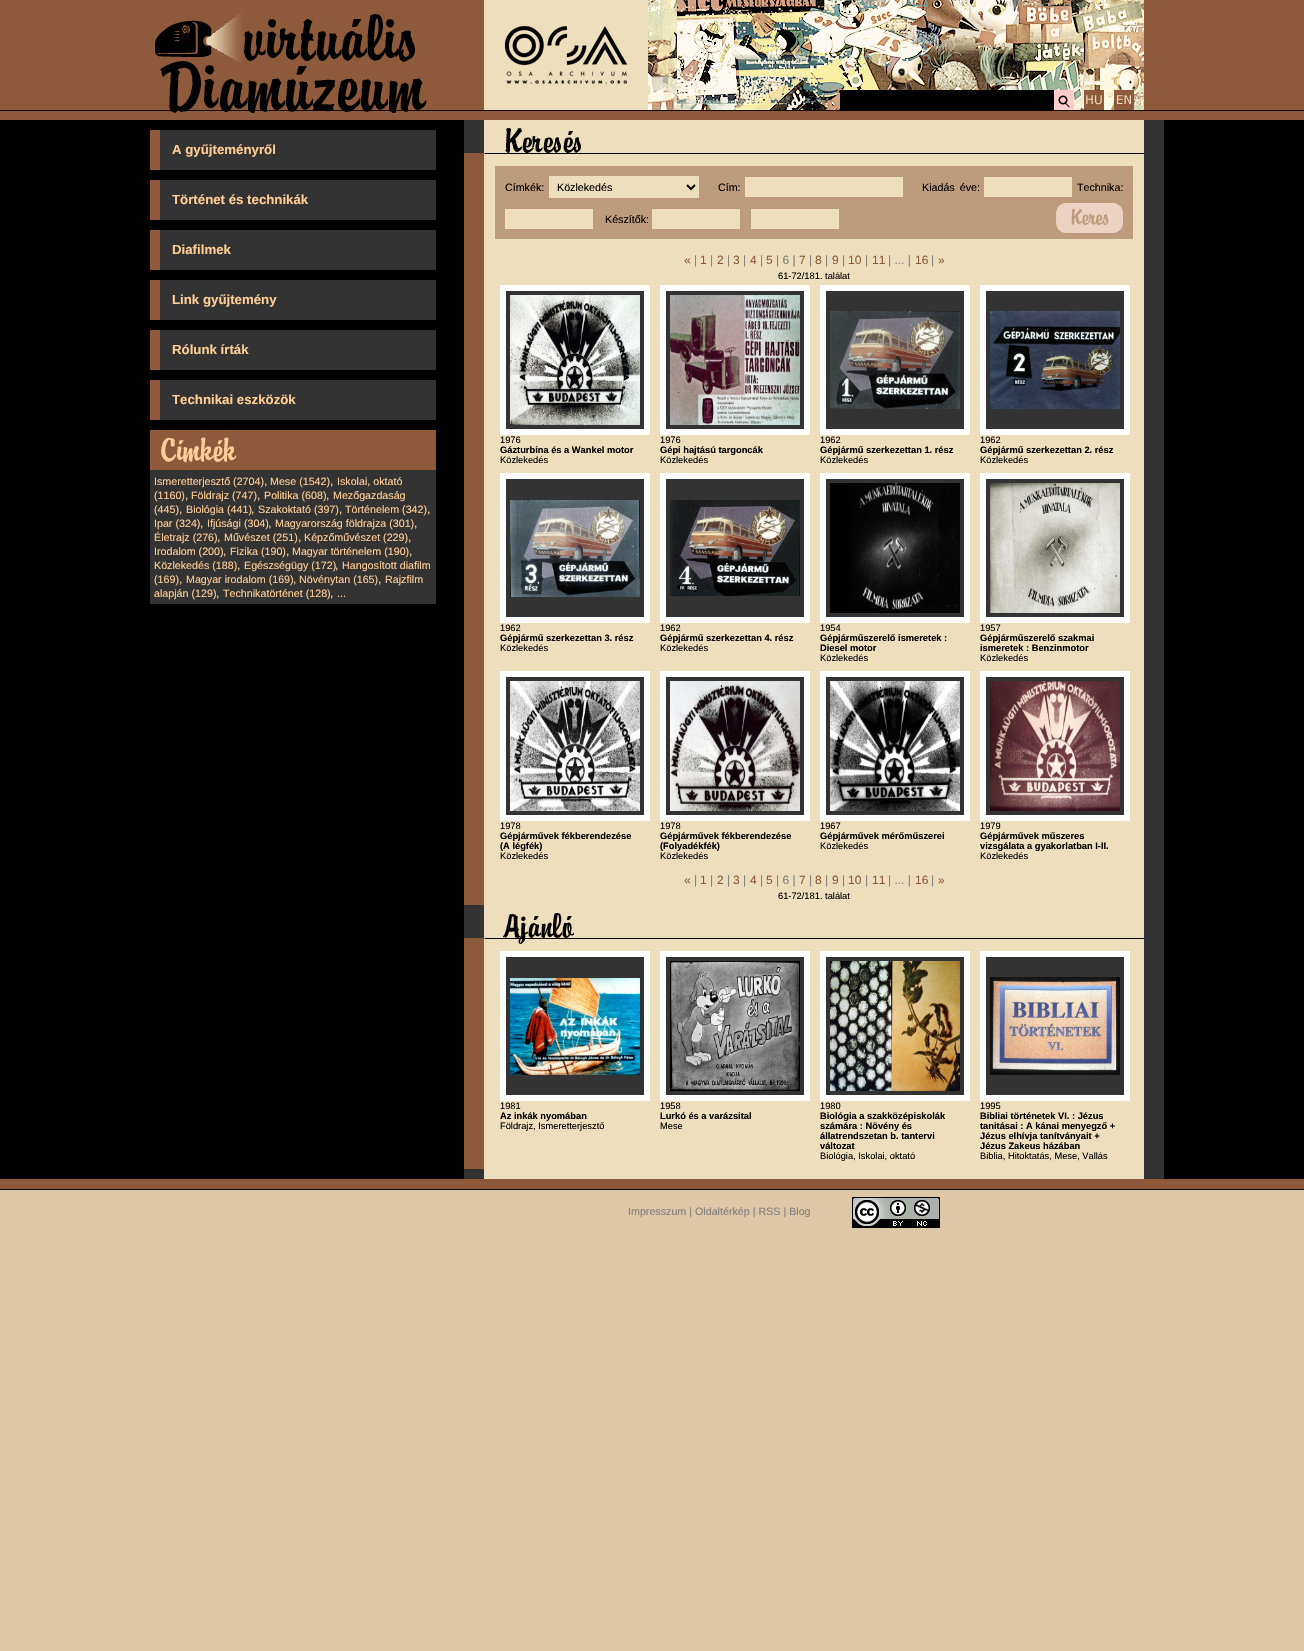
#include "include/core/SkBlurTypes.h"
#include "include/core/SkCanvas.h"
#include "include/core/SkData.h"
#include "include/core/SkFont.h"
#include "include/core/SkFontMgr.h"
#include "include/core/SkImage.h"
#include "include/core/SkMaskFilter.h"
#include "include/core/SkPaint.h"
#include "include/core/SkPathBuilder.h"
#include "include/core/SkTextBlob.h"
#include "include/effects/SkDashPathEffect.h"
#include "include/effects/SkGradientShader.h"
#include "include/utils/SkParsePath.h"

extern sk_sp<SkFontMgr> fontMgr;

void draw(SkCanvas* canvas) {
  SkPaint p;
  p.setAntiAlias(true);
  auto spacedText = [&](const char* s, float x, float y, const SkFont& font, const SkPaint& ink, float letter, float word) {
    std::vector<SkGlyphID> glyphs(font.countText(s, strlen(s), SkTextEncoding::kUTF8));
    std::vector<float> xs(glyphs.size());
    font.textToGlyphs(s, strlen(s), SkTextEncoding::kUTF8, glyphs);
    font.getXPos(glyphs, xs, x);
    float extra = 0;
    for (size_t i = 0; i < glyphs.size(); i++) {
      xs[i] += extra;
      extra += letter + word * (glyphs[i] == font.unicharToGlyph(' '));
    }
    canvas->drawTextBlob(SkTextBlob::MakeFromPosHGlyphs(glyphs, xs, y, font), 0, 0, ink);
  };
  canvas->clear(SkColorSetRGB(222, 199, 165));
  canvas->drawImageRect(SkImages::DeferredFromEncodedData(SkData::MakeFromFileName("images/1.png")), SkRect::MakeLTRB(0, 0, 1304, 120), SkSamplingOptions());
  canvas->drawImageRect(SkImages::DeferredFromEncodedData(SkData::MakeFromFileName("images/2.png")), SkRect::MakeLTRB(155, 0, 1144, 115), SkSamplingOptions());
  p.setColor(SK_ColorBLACK);
  canvas->drawRect(SkRect::MakeLTRB(840, 91, 1054, 111), p);
  canvas->drawRect(SkRect::MakeLTRB(0, 120, 1304, 1169), p);
  p.setColor(SkColorSetRGB(143, 90, 59));
  canvas->drawRect(SkRect::MakeLTRB(150, 130, 160, 170), p);
  p.setColor(SkColorSetRGB(51, 51, 51));
  canvas->drawRect(SkRect::MakeLTRB(160, 130, 436, 170), p);
  p.setColor(SkColorSetRGB(143, 90, 59));
  canvas->drawRect(SkRect::MakeLTRB(150, 180, 160, 220), p);
  p.setColor(SkColorSetRGB(51, 51, 51));
  canvas->drawRect(SkRect::MakeLTRB(160, 180, 436, 220), p);
  p.setColor(SkColorSetRGB(143, 90, 59));
  canvas->drawRect(SkRect::MakeLTRB(150, 230, 160, 270), p);
  p.setColor(SkColorSetRGB(51, 51, 51));
  canvas->drawRect(SkRect::MakeLTRB(160, 230, 436, 270), p);
  p.setColor(SkColorSetRGB(143, 90, 59));
  canvas->drawRect(SkRect::MakeLTRB(150, 280, 160, 320), p);
  p.setColor(SkColorSetRGB(51, 51, 51));
  canvas->drawRect(SkRect::MakeLTRB(160, 280, 436, 320), p);
  p.setColor(SkColorSetRGB(143, 90, 59));
  canvas->drawRect(SkRect::MakeLTRB(150, 330, 160, 370), p);
  p.setColor(SkColorSetRGB(51, 51, 51));
  canvas->drawRect(SkRect::MakeLTRB(160, 330, 436, 370), p);
  p.setColor(SkColorSetRGB(143, 90, 59));
  canvas->drawRect(SkRect::MakeLTRB(150, 380, 160, 420), p);
  p.setColor(SkColorSetRGB(51, 51, 51));
  canvas->drawRect(SkRect::MakeLTRB(160, 380, 436, 420), p);
  canvas->drawImageRect(SkImages::DeferredFromEncodedData(SkData::MakeFromFileName("images/3.png")), SkRect::MakeLTRB(150, 430, 436, 470), SkSamplingOptions());
  canvas->drawRect(SkRect::MakeLTRB(150, 470, 436, 604), p);
  canvas->drawImageRect(SkImages::DeferredFromEncodedData(SkData::MakeFromFileName("images/4.png")), SkRect::MakeLTRB(464, 120, 1164, 1169), SkSamplingOptions());
  canvas->drawImageRect(SkImages::DeferredFromEncodedData(SkData::MakeFromFileName("images/5.png")), SkRect::MakeLTRB(464, 120, 1144, 163), SkSamplingOptions());
  p.setColor(SkColorSetRGB(189, 156, 123));
  canvas->drawRect(SkRect::MakeLTRB(495, 166, 1133, 239), p);
  p.setColor(SkColorSetRGB(237, 223, 188));
  canvas->drawRect(SkRect::MakeLTRB(549, 176, 699, 198), p);
  p.setStyle(SkPaint::kStroke_Style);
  p.setStrokeWidth(2);
  p.setColor(SK_ColorBLACK);
  canvas->drawPath(SkPathBuilder().moveTo(687, 185).lineTo(691, 189).lineTo(695, 185).detach(), p);
  p.setStyle(SkPaint::kFill_Style);
  p.setColor(SkColorSetRGB(237, 223, 188));
  canvas->drawRect(SkRect::MakeLTRB(745, 177, 903, 197), p);
  canvas->drawRect(SkRect::MakeLTRB(984, 177, 1072, 197), p);
  canvas->drawRect(SkRect::MakeLTRB(505, 209, 593, 229), p);
  canvas->drawRect(SkRect::MakeLTRB(652, 209, 740, 229), p);
  canvas->drawRect(SkRect::MakeLTRB(751, 209, 839, 229), p);
  canvas->drawImageRect(SkImages::DeferredFromEncodedData(SkData::MakeFromFileName("images/6.png")), SkRect::MakeLTRB(1056, 203, 1123, 233), SkSamplingOptions());
  p.setColor(SkColorSetRGB(51, 51, 51));
  canvas->drawRect(SkRect::MakeLTRB(503, 288, 647, 432), p);
  p.setStyle(SkPaint::kStroke_Style);
  p.setStrokeWidth(6);
  p.setColor(SK_ColorWHITE);
  canvas->drawRect(SkRect::MakeLTRB(503, 288, 647, 432), p);
  canvas->drawImageRect(SkImages::DeferredFromEncodedData(SkData::MakeFromFileName("images/7.png")), SkRect::MakeLTRB(510, 295, 640, 425), SkSamplingOptions());
  p.setStyle(SkPaint::kFill_Style);
  p.setColor(SkColorSetRGB(51, 51, 51));
  canvas->drawRect(SkRect::MakeLTRB(663, 288, 807, 432), p);
  p.setStyle(SkPaint::kStroke_Style);
  p.setColor(SK_ColorWHITE);
  canvas->drawRect(SkRect::MakeLTRB(663, 288, 807, 432), p);
  canvas->drawImageRect(SkImages::DeferredFromEncodedData(SkData::MakeFromFileName("images/8.png")), SkRect::MakeLTRB(670, 295, 800, 425), SkSamplingOptions());
  p.setStyle(SkPaint::kFill_Style);
  p.setColor(SkColorSetRGB(51, 51, 51));
  canvas->drawRect(SkRect::MakeLTRB(823, 288, 967, 432), p);
  p.setStyle(SkPaint::kStroke_Style);
  p.setColor(SK_ColorWHITE);
  canvas->drawRect(SkRect::MakeLTRB(823, 288, 967, 432), p);
  canvas->drawImageRect(SkImages::DeferredFromEncodedData(SkData::MakeFromFileName("images/9.png")), SkRect::MakeLTRB(830, 311, 960, 409), SkSamplingOptions());
  p.setStyle(SkPaint::kFill_Style);
  p.setColor(SkColorSetRGB(51, 51, 51));
  canvas->drawRect(SkRect::MakeLTRB(983, 288, 1127, 432), p);
  p.setStyle(SkPaint::kStroke_Style);
  p.setColor(SK_ColorWHITE);
  canvas->drawRect(SkRect::MakeLTRB(983, 288, 1127, 432), p);
  canvas->drawImageRect(SkImages::DeferredFromEncodedData(SkData::MakeFromFileName("images/10.png")), SkRect::MakeLTRB(990, 311, 1120, 409), SkSamplingOptions());
  p.setStyle(SkPaint::kFill_Style);
  p.setColor(SkColorSetRGB(51, 51, 51));
  canvas->drawRect(SkRect::MakeLTRB(503, 476, 647, 620), p);
  p.setStyle(SkPaint::kStroke_Style);
  p.setColor(SK_ColorWHITE);
  canvas->drawRect(SkRect::MakeLTRB(503, 476, 647, 620), p);
  canvas->drawImageRect(SkImages::DeferredFromEncodedData(SkData::MakeFromFileName("images/11.png")), SkRect::MakeLTRB(510, 500, 640, 597), SkSamplingOptions());
  p.setStyle(SkPaint::kFill_Style);
  p.setColor(SkColorSetRGB(51, 51, 51));
  canvas->drawRect(SkRect::MakeLTRB(663, 476, 807, 620), p);
  p.setStyle(SkPaint::kStroke_Style);
  p.setColor(SK_ColorWHITE);
  canvas->drawRect(SkRect::MakeLTRB(663, 476, 807, 620), p);
  canvas->drawImageRect(SkImages::DeferredFromEncodedData(SkData::MakeFromFileName("images/12.png")), SkRect::MakeLTRB(670, 500, 800, 596), SkSamplingOptions());
  p.setStyle(SkPaint::kFill_Style);
  p.setColor(SkColorSetRGB(51, 51, 51));
  canvas->drawRect(SkRect::MakeLTRB(823, 476, 967, 620), p);
  p.setStyle(SkPaint::kStroke_Style);
  p.setColor(SK_ColorWHITE);
  canvas->drawRect(SkRect::MakeLTRB(823, 476, 967, 620), p);
  canvas->drawImageRect(SkImages::DeferredFromEncodedData(SkData::MakeFromFileName("images/13.png")), SkRect::MakeLTRB(830, 483, 960, 613), SkSamplingOptions());
  p.setStyle(SkPaint::kFill_Style);
  p.setColor(SkColorSetRGB(51, 51, 51));
  canvas->drawRect(SkRect::MakeLTRB(983, 476, 1127, 620), p);
  p.setStyle(SkPaint::kStroke_Style);
  p.setColor(SK_ColorWHITE);
  canvas->drawRect(SkRect::MakeLTRB(983, 476, 1127, 620), p);
  canvas->drawImageRect(SkImages::DeferredFromEncodedData(SkData::MakeFromFileName("images/14.png")), SkRect::MakeLTRB(990, 483, 1120, 613), SkSamplingOptions());
  p.setStyle(SkPaint::kFill_Style);
  p.setColor(SkColorSetRGB(51, 51, 51));
  canvas->drawRect(SkRect::MakeLTRB(503, 674, 647, 818), p);
  p.setStyle(SkPaint::kStroke_Style);
  p.setColor(SK_ColorWHITE);
  canvas->drawRect(SkRect::MakeLTRB(503, 674, 647, 818), p);
  canvas->drawImageRect(SkImages::DeferredFromEncodedData(SkData::MakeFromFileName("images/15.png")), SkRect::MakeLTRB(510, 681, 640, 811), SkSamplingOptions());
  p.setStyle(SkPaint::kFill_Style);
  p.setColor(SkColorSetRGB(51, 51, 51));
  canvas->drawRect(SkRect::MakeLTRB(663, 674, 807, 818), p);
  p.setStyle(SkPaint::kStroke_Style);
  p.setColor(SK_ColorWHITE);
  canvas->drawRect(SkRect::MakeLTRB(663, 674, 807, 818), p);
  canvas->drawImageRect(SkImages::DeferredFromEncodedData(SkData::MakeFromFileName("images/16.png")), SkRect::MakeLTRB(670, 681, 800, 811), SkSamplingOptions());
  p.setStyle(SkPaint::kFill_Style);
  p.setColor(SkColorSetRGB(51, 51, 51));
  canvas->drawRect(SkRect::MakeLTRB(823, 674, 967, 818), p);
  p.setStyle(SkPaint::kStroke_Style);
  p.setColor(SK_ColorWHITE);
  canvas->drawRect(SkRect::MakeLTRB(823, 674, 967, 818), p);
  canvas->drawImageRect(SkImages::DeferredFromEncodedData(SkData::MakeFromFileName("images/17.png")), SkRect::MakeLTRB(830, 681, 960, 811), SkSamplingOptions());
  p.setStyle(SkPaint::kFill_Style);
  p.setColor(SkColorSetRGB(51, 51, 51));
  canvas->drawRect(SkRect::MakeLTRB(983, 674, 1127, 818), p);
  p.setStyle(SkPaint::kStroke_Style);
  p.setColor(SK_ColorWHITE);
  canvas->drawRect(SkRect::MakeLTRB(983, 674, 1127, 818), p);
  canvas->drawImageRect(SkImages::DeferredFromEncodedData(SkData::MakeFromFileName("images/18.png")), SkRect::MakeLTRB(990, 681, 1120, 811), SkSamplingOptions());
  canvas->drawImageRect(SkImages::DeferredFromEncodedData(SkData::MakeFromFileName("images/19.png")), SkRect::MakeLTRB(464, 905, 1144, 944), SkSamplingOptions());
  p.setStyle(SkPaint::kFill_Style);
  p.setColor(SkColorSetRGB(51, 51, 51));
  canvas->drawRect(SkRect::MakeLTRB(503, 954, 647, 1098), p);
  p.setStyle(SkPaint::kStroke_Style);
  p.setColor(SK_ColorWHITE);
  canvas->drawRect(SkRect::MakeLTRB(503, 954, 647, 1098), p);
  canvas->drawImageRect(SkImages::DeferredFromEncodedData(SkData::MakeFromFileName("images/20.png")), SkRect::MakeLTRB(510, 978, 640, 1075), SkSamplingOptions());
  p.setStyle(SkPaint::kFill_Style);
  p.setColor(SkColorSetRGB(51, 51, 51));
  canvas->drawRect(SkRect::MakeLTRB(663, 954, 807, 1098), p);
  p.setStyle(SkPaint::kStroke_Style);
  p.setColor(SK_ColorWHITE);
  canvas->drawRect(SkRect::MakeLTRB(663, 954, 807, 1098), p);
  canvas->drawImageRect(SkImages::DeferredFromEncodedData(SkData::MakeFromFileName("images/21.png")), SkRect::MakeLTRB(670, 961, 800, 1091), SkSamplingOptions());
  p.setStyle(SkPaint::kFill_Style);
  p.setColor(SkColorSetRGB(51, 51, 51));
  canvas->drawRect(SkRect::MakeLTRB(823, 954, 967, 1098), p);
  p.setStyle(SkPaint::kStroke_Style);
  p.setColor(SK_ColorWHITE);
  canvas->drawRect(SkRect::MakeLTRB(823, 954, 967, 1098), p);
  canvas->drawImageRect(SkImages::DeferredFromEncodedData(SkData::MakeFromFileName("images/22.png")), SkRect::MakeLTRB(830, 961, 960, 1091), SkSamplingOptions());
  p.setStyle(SkPaint::kFill_Style);
  p.setColor(SkColorSetRGB(51, 51, 51));
  canvas->drawRect(SkRect::MakeLTRB(983, 954, 1127, 1098), p);
  p.setStyle(SkPaint::kStroke_Style);
  p.setColor(SK_ColorWHITE);
  canvas->drawRect(SkRect::MakeLTRB(983, 954, 1127, 1098), p);
  canvas->drawImageRect(SkImages::DeferredFromEncodedData(SkData::MakeFromFileName("images/23.png")), SkRect::MakeLTRB(990, 977, 1120, 1075), SkSamplingOptions());
  canvas->drawImageRect(SkImages::DeferredFromEncodedData(SkData::MakeFromFileName("images/24.png")), SkRect::MakeLTRB(0, 1169, 1304, 1190), SkSamplingOptions());
  canvas->drawImageRect(SkImages::DeferredFromEncodedData(SkData::MakeFromFileName("images/25.png")), SkRect::MakeLTRB(140, 1169, 1164, 1179), SkSamplingOptions());
  canvas->drawImageRect(SkImages::DeferredFromEncodedData(SkData::MakeFromFileName("images/26.png")), SkRect::MakeLTRB(852, 1197, 940, 1228), SkSamplingOptions());
  SkFont font1(fontMgr->matchFamilyStyle("Liberation Sans", SkFontStyle::Bold()), 13.25f);
  font1.setSubpixel(true);
  p.setStyle(SkPaint::kFill_Style);
  p.setColor(SkColorSetRGB(254, 205, 149));
  canvas->drawString("A gyűjteményről", 172, 154, font1, p);
  canvas->drawString("Történet és technikák", 172, 204, font1, p);
  canvas->drawString("Diafilmek", 172, 254, font1, p);
  canvas->drawString("Link gyűjtemény", 172, 304, font1, p);
  canvas->drawString("Rólunk írták", 172, 354, font1, p);
  canvas->drawString("Technikai eszközök", 172, 404, font1, p);
  SkFont font2(fontMgr->matchFamilyStyle("Liberation Sans", SkFontStyle::Normal()), 10.7f);
  font2.setSubpixel(true);
  canvas->drawString("Ismeretterjesztő (2704)", 154, 485, font2, p);
  SkFont font3(fontMgr->matchFamilyStyle("Liberation Sans", SkFontStyle::Normal()), 12);
  font3.setSubpixel(true);
  canvas->drawString(",", 264, 485, font3, p);
  canvas->drawString("Mese (1542)", 270, 485, font2, p);
  canvas->drawString(",", 330, 485, font3, p);
  canvas->drawString("Iskolai, oktató", 337, 485, font2, p);
  canvas->drawString("(1160)", 154, 499, font2, p);
  canvas->drawString(",", 185, 499, font3, p);
  canvas->drawString("Földrajz (747)", 191, 499, font2, p);
  canvas->drawString(",", 257, 499, font3, p);
  canvas->drawString("Politika (608)", 264, 499, font2, p);
  canvas->drawString(",", 326, 499, font3, p);
  canvas->drawString("Mezőgazdaság", 333, 499, font2, p);
  canvas->drawString("(445)", 154, 513, font2, p);
  canvas->drawString(",", 179, 513, font3, p);
  canvas->drawString("Biológia (441)", 186, 513, font2, p);
  canvas->drawString(",", 251, 513, font3, p);
  canvas->drawString("Szakoktató (397)", 258, 513, font2, p);
  canvas->drawString(",", 339, 513, font3, p);
  canvas->drawString("Történelem (342)", 345, 513, font2, p);
  canvas->drawString(",", 427, 513, font3, p);
  canvas->drawString("Ipar (324)", 154, 527, font2, p);
  canvas->drawString(",", 200, 527, font3, p);
  canvas->drawString("Ifjúsági (304)", 207, 527, font2, p);
  canvas->drawString(",", 268, 527, font3, p);
  canvas->drawString("Magyarország földrajza (301)", 275, 527, font2, p);
  canvas->drawString(",", 414, 527, font3, p);
  canvas->drawString("Életrajz (276)", 154, 541, font2, p);
  canvas->drawString(",", 217, 541, font3, p);
  canvas->drawString("Művészet (251)", 224, 541, font2, p);
  canvas->drawString(",", 298, 541, font3, p);
  canvas->drawString("Képzőművészet (229)", 304, 541, font2, p);
  canvas->drawString(",", 408, 541, font3, p);
  canvas->drawString("Irodalom (200)", 154, 555, font2, p);
  canvas->drawString(",", 223, 555, font3, p);
  canvas->drawString("Fizika (190)", 230, 555, font2, p);
  canvas->drawString(",", 286, 555, font3, p);
  canvas->drawString("Magyar történelem (190)", 292, 555, font2, p);
  canvas->drawString(",", 409, 555, font3, p);
  canvas->drawString("Közlekedés (188)", 154, 569, font2, p);
  canvas->drawString(",", 237, 569, font3, p);
  canvas->drawString("Egészségügy (172)", 244, 569, font2, p);
  canvas->drawString(",", 335, 569, font3, p);
  canvas->drawString("Hangosított diafilm", 342, 569, font2, p);
  canvas->drawString("(169)", 154, 583, font2, p);
  canvas->drawString(",", 179, 583, font3, p);
  canvas->drawString("Magyar irodalom (169)", 186, 583, font2, p);
  canvas->drawString(",", 293, 583, font3, p);
  canvas->drawString("Növénytan (165)", 299, 583, font2, p);
  canvas->drawString(",", 378, 583, font3, p);
  canvas->drawString("Rajzfilm", 385, 583, font2, p);
  canvas->drawString("alapján (129)", 154, 597, font2, p);
  canvas->drawString(",", 216, 597, font3, p);
  canvas->drawString("Technikatörténet (128)", 223, 597, font2, p);
  canvas->drawString(",", 330, 597, font3, p);
  canvas->drawString("...", 337, 597, font2, p);
  p.setColor(SK_ColorBLACK);
  canvas->drawString("Címkék:", 505, 191, font2, p);
  canvas->drawString("Közlekedés", 557, 191, font2, p);
  canvas->drawString("Cím:", 718, 191, font2, p);
  spacedText("Kiadás éve:", 922, 191, font2, p, 0, 2);
  canvas->drawString("Technika:", 1077, 191, font2, p);
  canvas->drawString("Készítők:", 605, 223, font2, p);
  p.setColor(SkColorSetRGB(143, 90, 59));
  canvas->drawString("«", 684, 264, font3, p);
  p.setColor(SkColorSetRGB(128, 128, 128));
  canvas->drawString("|", 694, 264, font3, p);
  p.setColor(SkColorSetRGB(143, 90, 59));
  canvas->drawString("1", 700, 264, font3, p);
  p.setColor(SkColorSetRGB(128, 128, 128));
  canvas->drawString("|", 710, 264, font3, p);
  p.setColor(SkColorSetRGB(143, 90, 59));
  canvas->drawString("2", 717, 264, font3, p);
  p.setColor(SkColorSetRGB(128, 128, 128));
  canvas->drawString("|", 727, 264, font3, p);
  p.setColor(SkColorSetRGB(143, 90, 59));
  canvas->drawString("3", 733, 264, font3, p);
  p.setColor(SkColorSetRGB(128, 128, 128));
  canvas->drawString("|", 743, 264, font3, p);
  p.setColor(SkColorSetRGB(143, 90, 59));
  canvas->drawString("4", 750, 264, font3, p);
  p.setColor(SkColorSetRGB(128, 128, 128));
  canvas->drawString("|", 760, 264, font3, p);
  p.setColor(SkColorSetRGB(143, 90, 59));
  canvas->drawString("5", 766, 264, font3, p);
  p.setColor(SkColorSetRGB(128, 128, 128));
  canvas->drawString("| 6 |", 776, 264, font3, p);
  p.setColor(SkColorSetRGB(143, 90, 59));
  canvas->drawString("7", 799, 264, font3, p);
  p.setColor(SkColorSetRGB(128, 128, 128));
  canvas->drawString("|", 809, 264, font3, p);
  p.setColor(SkColorSetRGB(143, 90, 59));
  canvas->drawString("8", 815, 264, font3, p);
  p.setColor(SkColorSetRGB(128, 128, 128));
  canvas->drawString("|", 825, 264, font3, p);
  p.setColor(SkColorSetRGB(143, 90, 59));
  canvas->drawString("9", 832, 264, font3, p);
  p.setColor(SkColorSetRGB(128, 128, 128));
  canvas->drawString("|", 842, 264, font3, p);
  p.setColor(SkColorSetRGB(143, 90, 59));
  canvas->drawString("10", 848, 264, font3, p);
  p.setColor(SkColorSetRGB(128, 128, 128));
  canvas->drawString("|", 865, 264, font3, p);
  p.setColor(SkColorSetRGB(143, 90, 59));
  canvas->drawString("11", 872, 264, font3, p);
  p.setColor(SkColorSetRGB(128, 128, 128));
  canvas->drawString("| ... |", 888, 264, font3, p);
  p.setColor(SkColorSetRGB(143, 90, 59));
  canvas->drawString("16", 915, 264, font3, p);
  p.setColor(SkColorSetRGB(128, 128, 128));
  canvas->drawString("|", 931, 264, font3, p);
  p.setColor(SkColorSetRGB(143, 90, 59));
  canvas->drawString("»", 938, 264, font3, p);
  SkFont font4(fontMgr->matchFamilyStyle("Liberation Sans", SkFontStyle::Normal()), 9.3f);
  font4.setSubpixel(true);
  p.setColor(SK_ColorBLACK);
  canvas->drawString("61-72/181. találat", 778, 279, font4, p);
  canvas->drawString("1976", 500, 443, font4, p);
  SkFont font5(fontMgr->matchFamilyStyle("Liberation Sans", SkFontStyle::Bold()), 9.3f);
  font5.setSubpixel(true);
  canvas->drawString("Gázturbina és a Wankel motor", 500, 453, font5, p);
  canvas->drawString("Közlekedés", 500, 463, font4, p);
  canvas->drawString("1976", 660, 443, font4, p);
  canvas->drawString("Gépi hajtású targoncák", 660, 453, font5, p);
  canvas->drawString("Közlekedés", 660, 463, font4, p);
  canvas->drawString("1962", 820, 443, font4, p);
  canvas->drawString("Gépjármű szerkezettan 1. rész", 820, 453, font5, p);
  canvas->drawString("Közlekedés", 820, 463, font4, p);
  canvas->drawString("1962", 980, 443, font4, p);
  canvas->drawString("Gépjármű szerkezettan 2. rész", 980, 453, font5, p);
  canvas->drawString("Közlekedés", 980, 463, font4, p);
  canvas->drawString("1962", 500, 631, font4, p);
  canvas->drawString("Gépjármű szerkezettan 3. rész", 500, 641, font5, p);
  canvas->drawString("Közlekedés", 500, 651, font4, p);
  canvas->drawString("1962", 660, 631, font4, p);
  canvas->drawString("Gépjármű szerkezettan 4. rész", 660, 641, font5, p);
  canvas->drawString("Közlekedés", 660, 651, font4, p);
  canvas->drawString("1954", 820, 631, font4, p);
  canvas->drawString("Gépjárműszerelő ismeretek :", 820, 641, font5, p);
  canvas->drawString("Diesel motor", 820, 651, font5, p);
  canvas->drawString("Közlekedés", 820, 661, font4, p);
  canvas->drawString("1957", 980, 631, font4, p);
  canvas->drawString("Gépjárműszerelő szakmai", 980, 641, font5, p);
  canvas->drawString("ismeretek : Benzinmotor", 980, 651, font5, p);
  canvas->drawString("Közlekedés", 980, 661, font4, p);
  canvas->drawString("1978", 500, 829, font4, p);
  canvas->drawString("Gépjárművek fékberendezése", 500, 839, font5, p);
  canvas->drawString("(A légfék)", 500, 849, font5, p);
  canvas->drawString("Közlekedés", 500, 859, font4, p);
  canvas->drawString("1978", 660, 829, font4, p);
  canvas->drawString("Gépjárművek fékberendezése", 660, 839, font5, p);
  canvas->drawString("(Folyadékfék)", 660, 849, font5, p);
  canvas->drawString("Közlekedés", 660, 859, font4, p);
  canvas->drawString("1967", 820, 829, font4, p);
  canvas->drawString("Gépjárművek mérőműszerei", 820, 839, font5, p);
  canvas->drawString("Közlekedés", 820, 849, font4, p);
  canvas->drawString("1979", 980, 829, font4, p);
  canvas->drawString("Gépjárművek műszeres", 980, 839, font5, p);
  canvas->drawString("vizsgálata a gyakorlatban I-II.", 980, 849, font5, p);
  canvas->drawString("Közlekedés", 980, 859, font4, p);
  p.setColor(SkColorSetRGB(143, 90, 59));
  canvas->drawString("«", 684, 884, font3, p);
  p.setColor(SkColorSetRGB(128, 128, 128));
  canvas->drawString("|", 694, 884, font3, p);
  p.setColor(SkColorSetRGB(143, 90, 59));
  canvas->drawString("1", 700, 884, font3, p);
  p.setColor(SkColorSetRGB(128, 128, 128));
  canvas->drawString("|", 710, 884, font3, p);
  p.setColor(SkColorSetRGB(143, 90, 59));
  canvas->drawString("2", 717, 884, font3, p);
  p.setColor(SkColorSetRGB(128, 128, 128));
  canvas->drawString("|", 727, 884, font3, p);
  p.setColor(SkColorSetRGB(143, 90, 59));
  canvas->drawString("3", 733, 884, font3, p);
  p.setColor(SkColorSetRGB(128, 128, 128));
  canvas->drawString("|", 743, 884, font3, p);
  p.setColor(SkColorSetRGB(143, 90, 59));
  canvas->drawString("4", 750, 884, font3, p);
  p.setColor(SkColorSetRGB(128, 128, 128));
  canvas->drawString("|", 760, 884, font3, p);
  p.setColor(SkColorSetRGB(143, 90, 59));
  canvas->drawString("5", 766, 884, font3, p);
  p.setColor(SkColorSetRGB(128, 128, 128));
  canvas->drawString("| 6 |", 776, 884, font3, p);
  p.setColor(SkColorSetRGB(143, 90, 59));
  canvas->drawString("7", 799, 884, font3, p);
  p.setColor(SkColorSetRGB(128, 128, 128));
  canvas->drawString("|", 809, 884, font3, p);
  p.setColor(SkColorSetRGB(143, 90, 59));
  canvas->drawString("8", 815, 884, font3, p);
  p.setColor(SkColorSetRGB(128, 128, 128));
  canvas->drawString("|", 825, 884, font3, p);
  p.setColor(SkColorSetRGB(143, 90, 59));
  canvas->drawString("9", 832, 884, font3, p);
  p.setColor(SkColorSetRGB(128, 128, 128));
  canvas->drawString("|", 842, 884, font3, p);
  p.setColor(SkColorSetRGB(143, 90, 59));
  canvas->drawString("10", 848, 884, font3, p);
  p.setColor(SkColorSetRGB(128, 128, 128));
  canvas->drawString("|", 865, 884, font3, p);
  p.setColor(SkColorSetRGB(143, 90, 59));
  canvas->drawString("11", 872, 884, font3, p);
  p.setColor(SkColorSetRGB(128, 128, 128));
  canvas->drawString("| ... |", 888, 884, font3, p);
  p.setColor(SkColorSetRGB(143, 90, 59));
  canvas->drawString("16", 915, 884, font3, p);
  p.setColor(SkColorSetRGB(128, 128, 128));
  canvas->drawString("|", 931, 884, font3, p);
  p.setColor(SkColorSetRGB(143, 90, 59));
  canvas->drawString("»", 938, 884, font3, p);
  p.setColor(SK_ColorBLACK);
  canvas->drawString("61-72/181. találat", 778, 899, font4, p);
  canvas->drawString("1981", 500, 1109, font4, p);
  canvas->drawString("Az inkák nyomában", 500, 1119, font5, p);
  canvas->drawString("Földrajz, Ismeretterjesztő", 500, 1129, font4, p);
  canvas->drawString("1958", 660, 1109, font4, p);
  canvas->drawString("Lurkó és a varázsital", 660, 1119, font5, p);
  canvas->drawString("Mese", 660, 1129, font4, p);
  canvas->drawString("1980", 820, 1109, font4, p);
  canvas->drawString("Biológia a szakközépiskolák", 820, 1119, font5, p);
  canvas->drawString("számára : Növény és", 820, 1129, font5, p);
  canvas->drawString("állatrendszetan b. tantervi", 820, 1139, font5, p);
  canvas->drawString("változat", 820, 1149, font5, p);
  canvas->drawString("Biológia, Iskolai, oktató", 820, 1159, font4, p);
  canvas->drawString("1995", 980, 1109, font4, p);
  canvas->drawString("Bibliai történetek VI. : Jézus", 980, 1119, font5, p);
  canvas->drawString("tanitásai : A kánai menyegző +", 980, 1129, font5, p);
  canvas->drawString("Jézus elhívja tanítványait +", 980, 1139, font5, p);
  canvas->drawString("Jézus Zakeus házában", 980, 1149, font5, p);
  canvas->drawString("Biblia, Hitoktatás, Mese, Vallás", 980, 1159, font4, p);
  p.setColor(SkColorSetRGB(128, 128, 128));
  canvas->drawString("Impresszum | Oldaltérkép | RSS | Blog", 628, 1215, font2, p);
}
